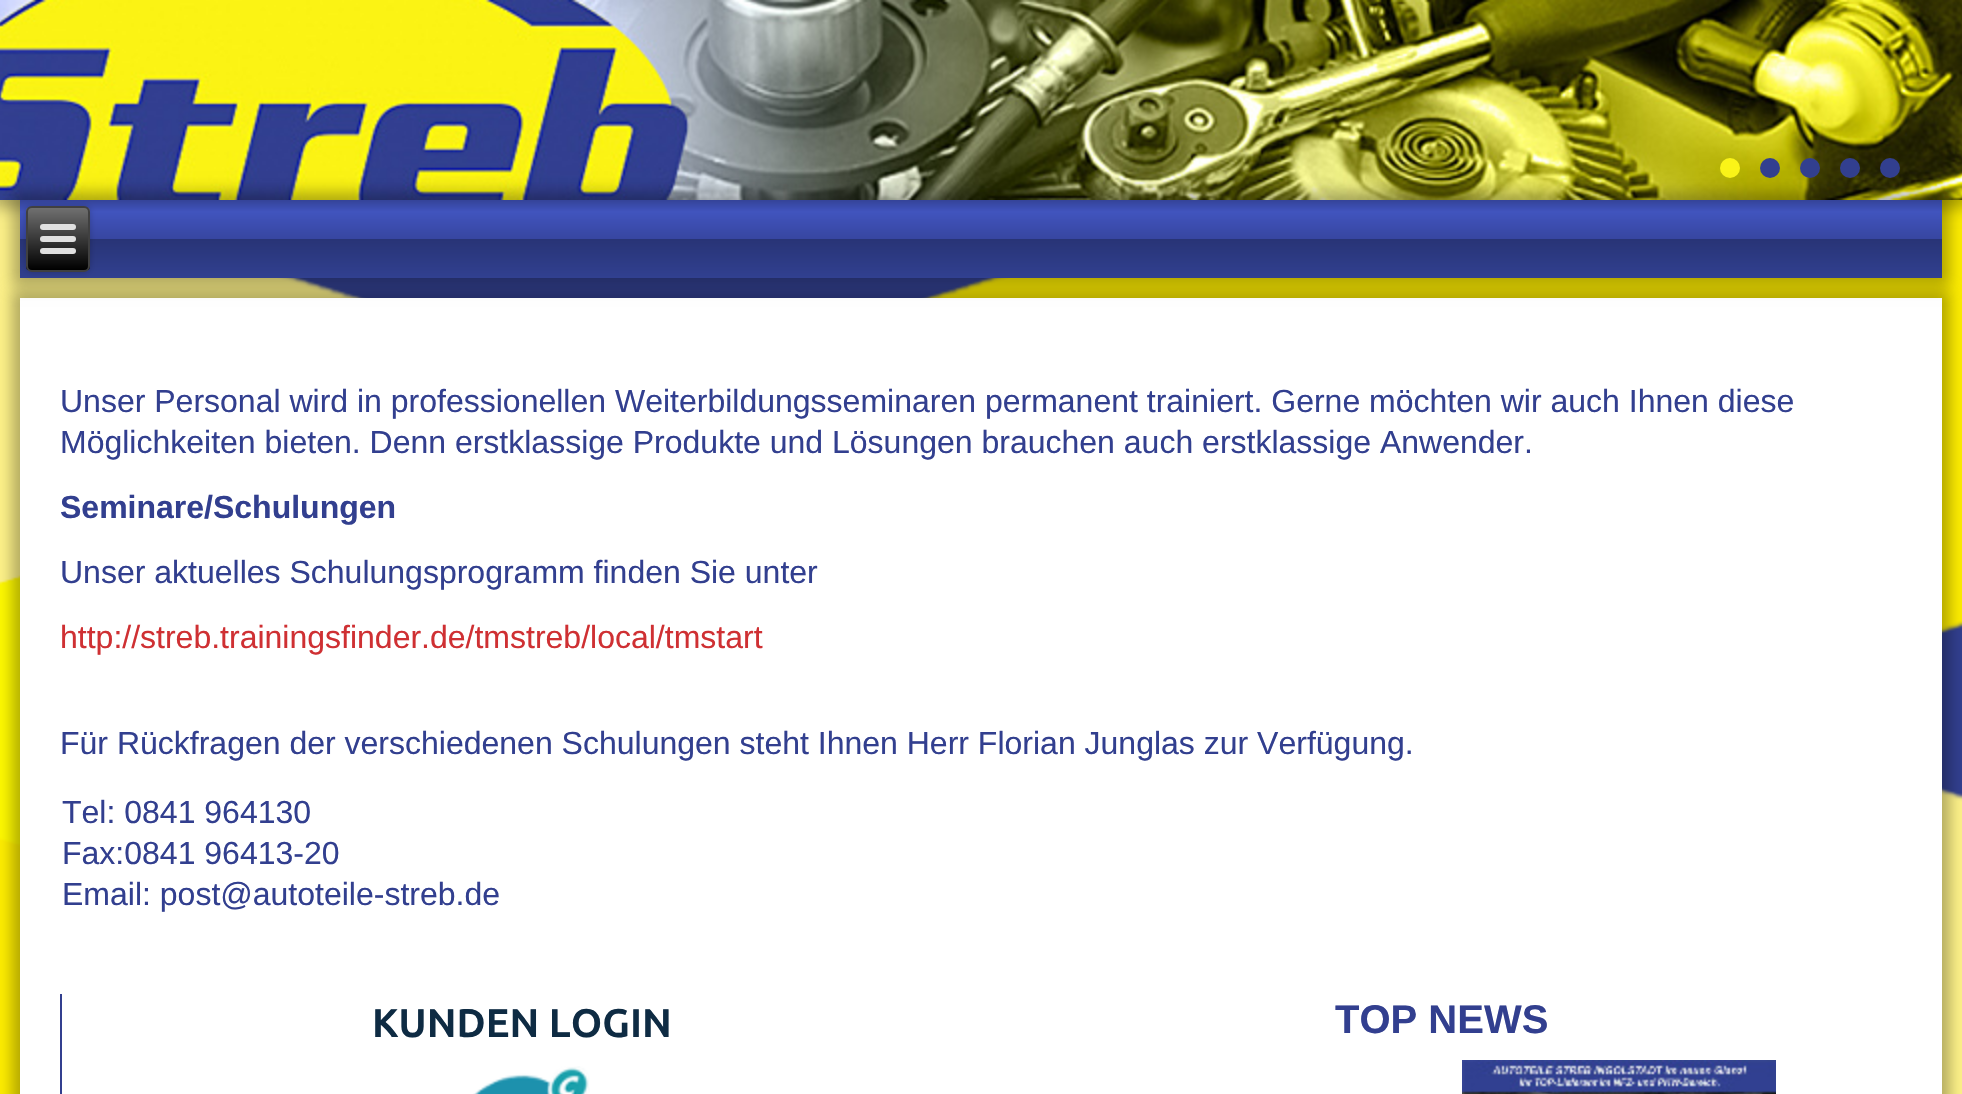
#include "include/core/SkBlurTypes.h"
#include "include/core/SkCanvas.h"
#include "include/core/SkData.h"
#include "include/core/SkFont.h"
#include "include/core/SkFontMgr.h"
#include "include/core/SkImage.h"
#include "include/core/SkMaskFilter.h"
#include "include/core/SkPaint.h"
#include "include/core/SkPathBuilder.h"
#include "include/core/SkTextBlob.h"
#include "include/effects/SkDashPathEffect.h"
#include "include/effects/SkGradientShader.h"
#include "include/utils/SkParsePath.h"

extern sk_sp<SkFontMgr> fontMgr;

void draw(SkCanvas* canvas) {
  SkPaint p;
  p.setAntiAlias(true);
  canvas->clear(SkColorSetRGB(50, 63, 143));
  canvas->drawImageRect(SkImages::DeferredFromEncodedData(SkData::MakeFromFileName("images/1.png")), SkRect::MakeLTRB(0, 200, 1962, 1094), SkSamplingOptions());
  p.setColor(SkColorSetARGB(77, 0, 0, 0));
  p.setMaskFilter(SkMaskFilter::MakeBlur(kNormal_SkBlurStyle, 7));
  canvas->drawRect(SkRect::MakeLTRB(-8, -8, 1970, 208), p);
  p.setMaskFilter(nullptr);
  canvas->drawImageRect(SkImages::DeferredFromEncodedData(SkData::MakeFromFileName("images/2.png")), SkRect::MakeLTRB(0, 0, 1962, 200), SkSamplingOptions());
  p.setColor(SkColorSetRGB(251, 244, 24));
  canvas->drawCircle(1730, 168, 10, p);
  p.setColor(SkColorSetRGB(50, 63, 143));
  canvas->drawCircle(1770, 168, 10, p);
  canvas->drawCircle(1810, 168, 10, p);
  canvas->drawCircle(1850, 168, 10, p);
  canvas->drawCircle(1890, 168, 10, p);
  p.setColor(SkColorSetARGB(77, 0, 0, 0));
  p.setMaskFilter(SkMaskFilter::MakeBlur(kNormal_SkBlurStyle, 7));
  canvas->drawRect(SkRect::MakeLTRB(12, 290, 1950, 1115), p);
  p.setMaskFilter(nullptr);
  p.setColor(SK_ColorWHITE);
  canvas->drawRect(SkRect::MakeLTRB(20, 298, 1942, 1094), p);
  p.setColor(SkColorSetARGB(77, 0, 0, 0));
  p.setMaskFilter(SkMaskFilter::MakeBlur(kNormal_SkBlurStyle, 7));
  canvas->drawRect(SkRect::MakeLTRB(12, 192, 1950, 286), p);
  p.setMaskFilter(nullptr);
  {
    const SkColor colors[] = {SkColorSetRGB(52, 67, 152), SkColorSetRGB(65, 84, 190), SkColorSetRGB(55, 70, 160), SkColorSetRGB(40, 52, 118), SkColorSetRGB(49, 64, 144)};
    const float stops[] = {0, 0.15f, 0.5f, 0.5f, 1};
    const SkPoint ends[] = {{981, 200}, {981, 278}};
    p.setShader(SkGradientShader::MakeLinear(ends, colors, stops, 5, SkTileMode::kClamp));
    p.setAlpha(255);
  }
  canvas->drawRect(SkRect::MakeLTRB(20, 200, 1942, 278), p);
  p.setShader(nullptr);
  p.setColor(SkColorSetARGB(51, 0, 0, 0));
  p.setMaskFilter(SkMaskFilter::MakeBlur(kNormal_SkBlurStyle, 3));
  canvas->drawRoundRect(SkRect::MakeLTRB(26, 206, 90, 272), 6, 6, p);
  p.setMaskFilter(nullptr);
  canvas->save();
  canvas->clipPath(SkPathBuilder().moveTo(32, 206).lineTo(84, 206).cubicTo(87.5f, 206, 90, 208.5f, 90, 212).lineTo(90, 266).cubicTo(90, 269.5f, 87.5f, 272, 84, 272).lineTo(32, 272).cubicTo(28.5f, 272, 26, 269.5f, 26, 266).lineTo(26, 212).cubicTo(26, 208.5f, 28.5f, 206, 32, 206).close().detach(), true);
  {
    const SkColor colors[] = {SkColorSetRGB(112, 112, 112), SK_ColorBLACK};
    const float stops[] = {0, 1};
    const SkPoint ends[] = {{58, 208}, {58, 270}};
    p.setShader(SkGradientShader::MakeLinear(ends, colors, stops, 2, SkTileMode::kClamp));
    p.setAlpha(255);
  }
  canvas->drawRect(SkRect::MakeLTRB(26, 208, 90, 270), p);
  canvas->restore();
  p.setStyle(SkPaint::kStroke_Style);
  p.setStrokeWidth(2);
  p.setShader(nullptr);
  p.setColor(SkColorSetRGB(64, 64, 64));
  canvas->drawRoundRect(SkRect::MakeLTRB(27, 207, 89, 271), 5, 5, p);
  p.setStyle(SkPaint::kFill_Style);
  p.setColor(SkColorSetRGB(224, 224, 224));
  canvas->drawRoundRect(SkRect::MakeLTRB(40, 224, 76, 230), 3, 3, p);
  canvas->drawRoundRect(SkRect::MakeLTRB(40, 236, 76, 242), 3, 3, p);
  canvas->drawRoundRect(SkRect::MakeLTRB(40, 248, 76, 254), 3, 3, p);
  p.setColor(SkColorSetRGB(50, 63, 143));
  canvas->drawRect(SkRect::MakeLTRB(60, 994, 62, 1094), p);
  canvas->drawImageRect(SkImages::DeferredFromEncodedData(SkData::MakeFromFileName("images/3.png")), SkRect::MakeLTRB(473, 1066, 590, 1094), SkSamplingOptions());
  canvas->drawImageRect(SkImages::DeferredFromEncodedData(SkData::MakeFromFileName("images/4.png")), SkRect::MakeLTRB(1462, 1060, 1776, 1094), SkSamplingOptions());
  SkFont font1(fontMgr->matchFamilyStyle("Liberation Sans", SkFontStyle::Normal()), 32);
  font1.setSubpixel(true);
  canvas->drawString("Unser Personal wird in professionellen Weiterbildungsseminaren permanent trainiert. Gerne möchten wir auch Ihnen diese", 60, 412, font1, p);
  canvas->drawString("Möglichkeiten bieten. Denn erstklassige Produkte und Lösungen brauchen auch erstklassige Anwender.", 60, 453, font1, p);
  SkFont font2(fontMgr->matchFamilyStyle("Liberation Sans", SkFontStyle::Bold()), 32);
  font2.setSubpixel(true);
  canvas->drawString("Seminare/Schulungen", 60, 518, font2, p);
  canvas->drawString("Unser aktuelles Schulungsprogramm finden Sie unter", 60, 583, font1, p);
  p.setColor(SkColorSetRGB(207, 48, 51));
  canvas->drawString("http://streb.trainingsfinder.de/tmstreb/local/tmstart", 60, 648, font1, p);
  p.setColor(SkColorSetRGB(50, 63, 143));
  canvas->drawString("Für Rückfragen der verschiedenen Schulungen steht Ihnen Herr Florian Junglas zur Verfügung.", 60, 754, font1, p);
  canvas->drawString("Tel: 0841 964130", 62, 823, font1, p);
  canvas->drawString("Fax:0841 96413-20", 62, 864, font1, p);
  canvas->drawString("Email: post@autoteile-streb.de", 62, 905, font1, p);
  SkFont font3(fontMgr->matchFamilyStyle("Ubuntu", SkFontStyle::Bold()), 40);
  font3.setSubpixel(true);
  p.setColor(SkColorSetRGB(14, 43, 67));
  canvas->drawString("KUNDEN LOGIN", 372, 1037, font3, p);
  SkFont font4(fontMgr->matchFamilyStyle("Liberation Sans", SkFontStyle::Bold()), 40);
  font4.setSubpixel(true);
  p.setColor(SkColorSetRGB(50, 63, 143));
  canvas->drawString("TOP NEWS", 1335, 1033, font4, p);
}
